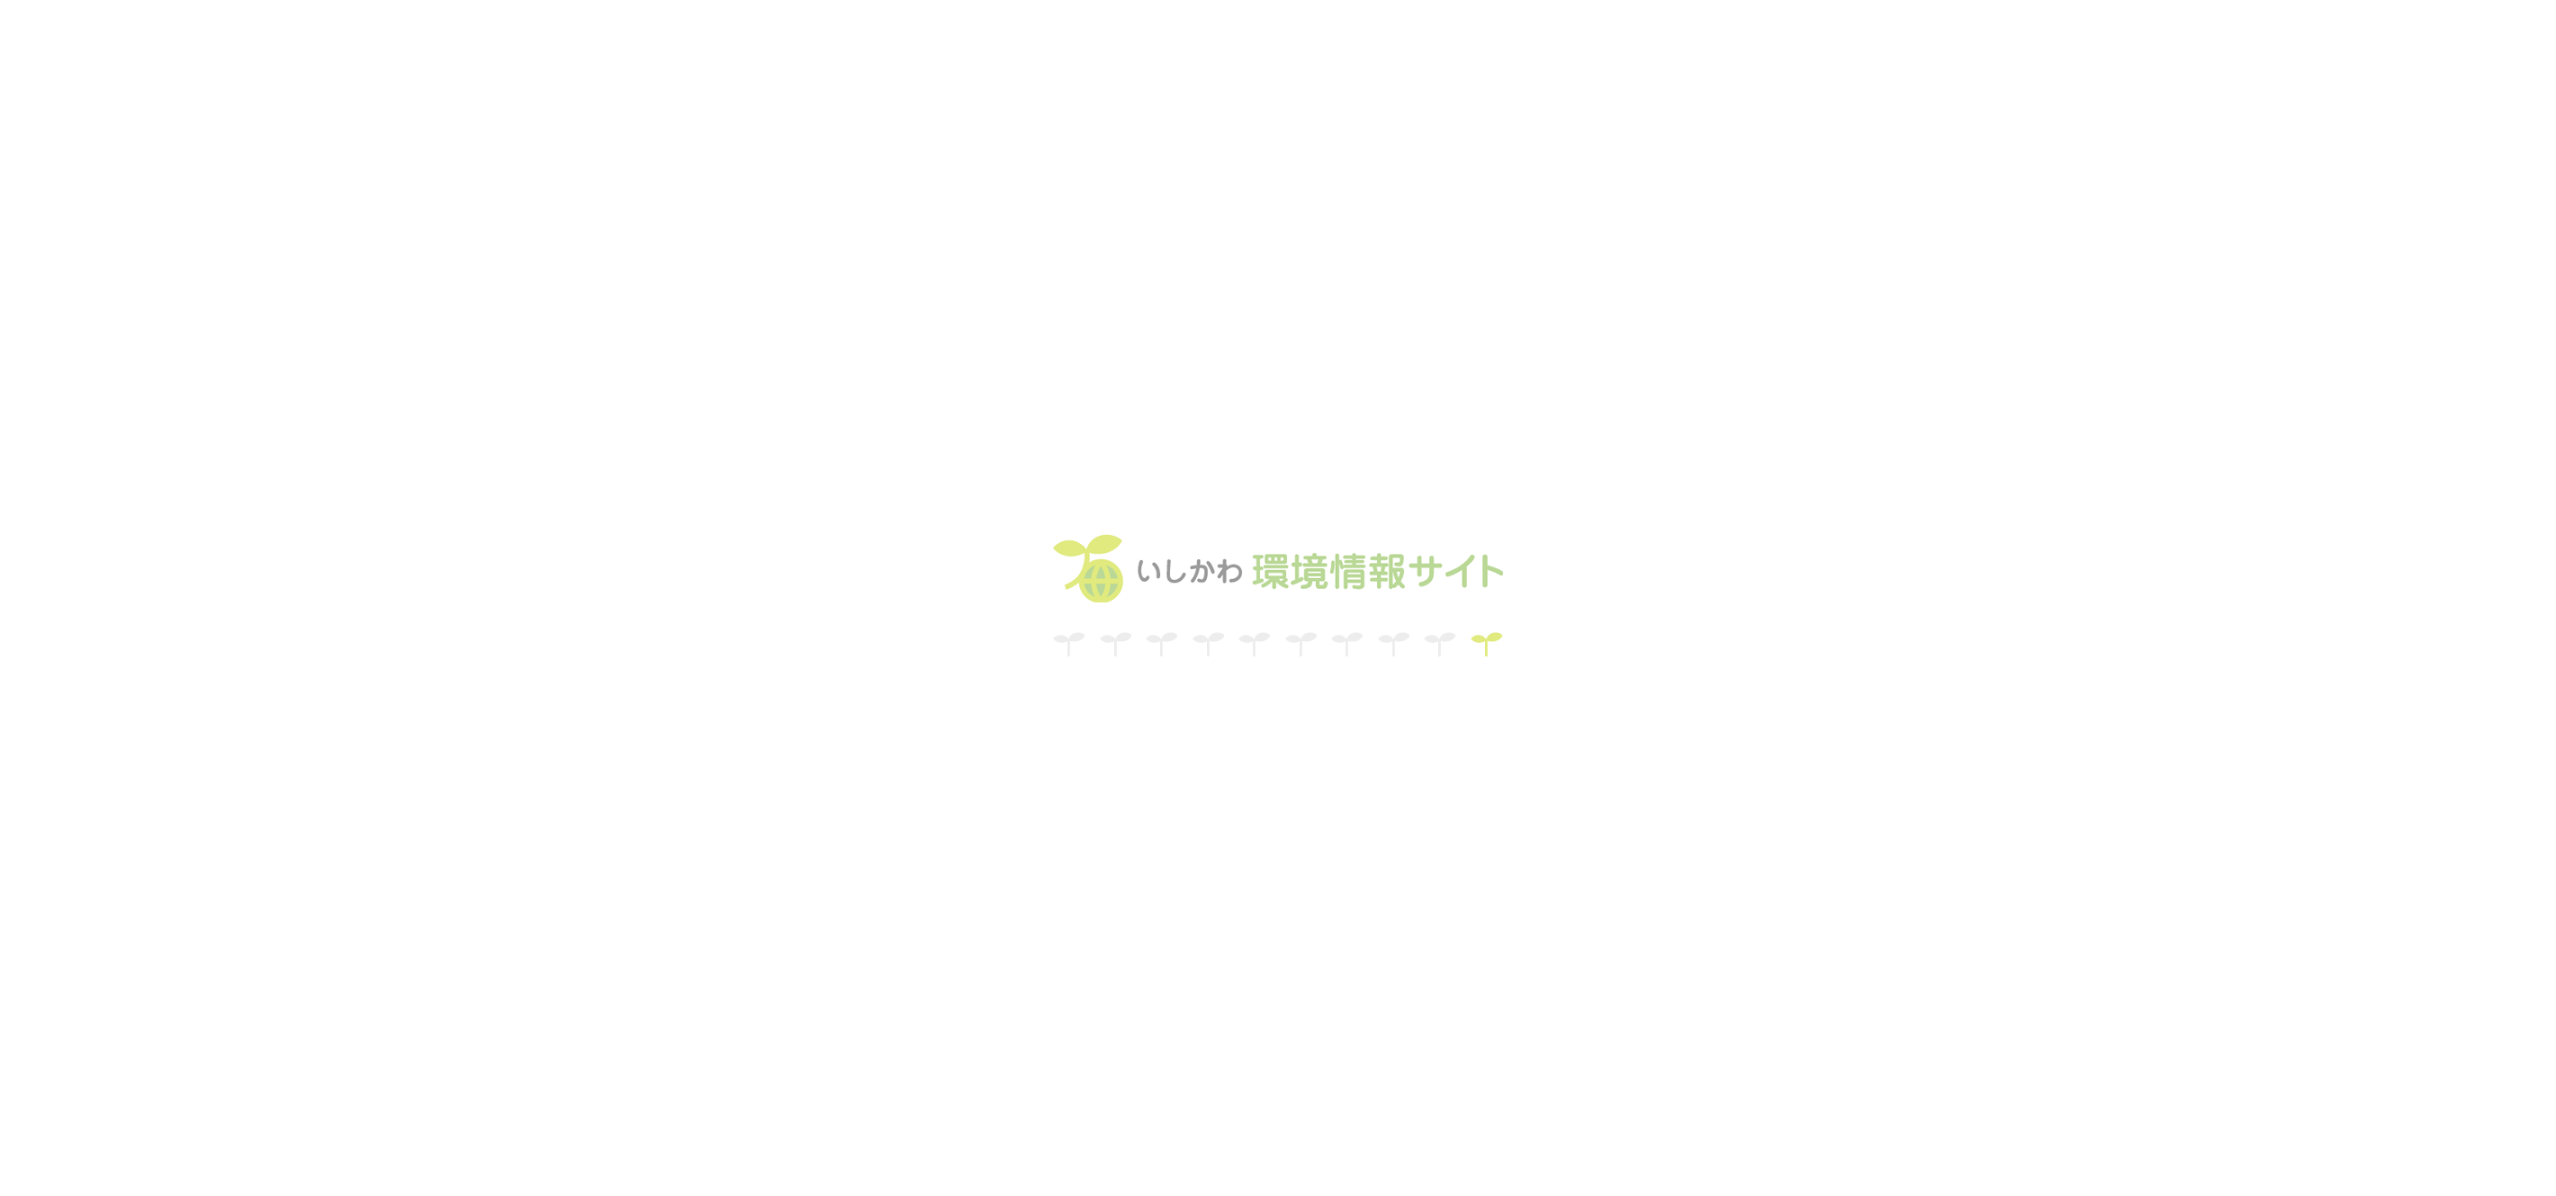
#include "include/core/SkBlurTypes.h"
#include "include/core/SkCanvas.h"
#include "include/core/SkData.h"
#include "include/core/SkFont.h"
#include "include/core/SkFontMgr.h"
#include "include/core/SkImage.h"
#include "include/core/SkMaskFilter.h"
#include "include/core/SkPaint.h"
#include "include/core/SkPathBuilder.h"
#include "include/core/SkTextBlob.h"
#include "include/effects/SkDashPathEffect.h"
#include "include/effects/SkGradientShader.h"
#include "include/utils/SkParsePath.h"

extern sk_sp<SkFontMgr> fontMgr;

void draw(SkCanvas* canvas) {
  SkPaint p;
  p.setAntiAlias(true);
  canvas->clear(SK_ColorWHITE);
  canvas->drawImageRect(SkImages::DeferredFromEncodedData(SkData::MakeFromFileName("images/1.png")), SkRect::MakeLTRB(1053, 534, 1503, 657), SkSamplingOptions());
}
